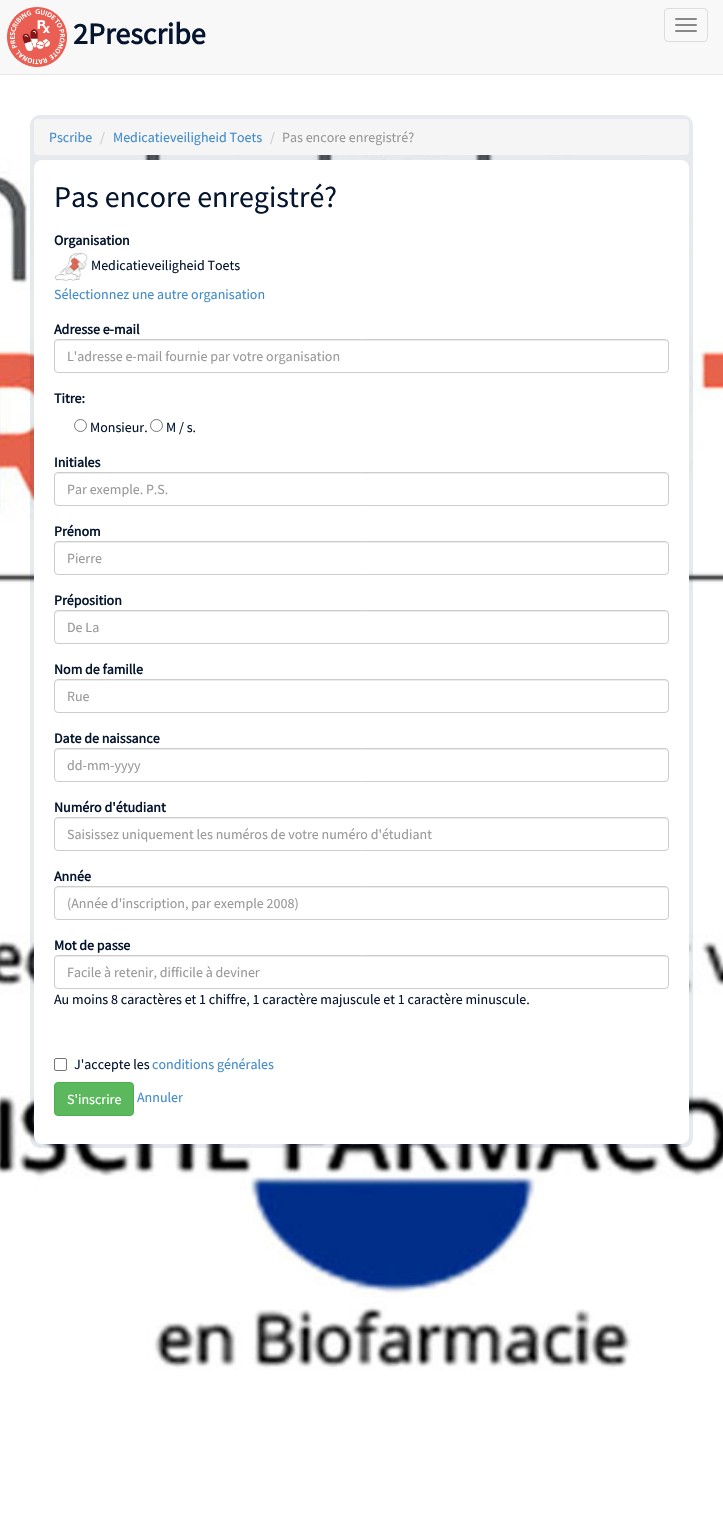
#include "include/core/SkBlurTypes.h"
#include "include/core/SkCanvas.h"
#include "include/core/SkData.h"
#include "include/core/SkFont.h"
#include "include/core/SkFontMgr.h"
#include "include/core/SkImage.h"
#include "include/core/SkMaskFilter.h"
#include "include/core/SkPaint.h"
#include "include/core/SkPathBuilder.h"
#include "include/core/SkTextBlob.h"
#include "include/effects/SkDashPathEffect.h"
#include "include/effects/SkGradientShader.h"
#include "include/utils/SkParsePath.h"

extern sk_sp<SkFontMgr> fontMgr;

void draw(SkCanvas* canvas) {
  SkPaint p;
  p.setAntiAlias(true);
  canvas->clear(SK_ColorWHITE);
  canvas->drawImageRect(SkImages::DeferredFromEncodedData(SkData::MakeFromFileName("images/1.png")), SkRect::MakeLTRB(0, 125, 723, 1370), SkSamplingOptions());
  p.setColor(SkColorSetRGB(248, 248, 248));
  canvas->drawRect(SkRect::MakeLTRB(0, 0, 723, 74), p);
  p.setColor(SkColorSetRGB(231, 231, 231));
  canvas->drawRect(SkRect::MakeLTRB(0, 74, 723, 75), p);
  canvas->drawImageRect(SkImages::DeferredFromEncodedData(SkData::MakeFromFileName("images/2.png")), SkRect::MakeLTRB(7, 7, 67, 67), SkSamplingOptions());
  p.setStyle(SkPaint::kStroke_Style);
  p.setStrokeWidth(1);
  p.setColor(SkColorSetRGB(221, 221, 221));
  canvas->drawRoundRect(SkRect::MakeLTRB(664.5f, 8.5f, 707.5f, 41.5f), 3.5f, 3.5f, p);
  p.setStyle(SkPaint::kFill_Style);
  p.setColor(SkColorSetRGB(136, 136, 136));
  canvas->drawRoundRect(SkRect::MakeLTRB(675, 18, 697, 20), 1, 1, p);
  canvas->drawRoundRect(SkRect::MakeLTRB(675, 24, 697, 26), 1, 1, p);
  canvas->drawRoundRect(SkRect::MakeLTRB(675, 30, 697, 32), 1, 1, p);
  p.setColor(SkColorSetARGB(26, 6, 40, 77));
  canvas->drawRoundRect(SkRect::MakeLTRB(30, 115, 693, 1148), 10, 10, p);
  p.setColor(SkColorSetRGB(245, 245, 245));
  canvas->drawRoundRect(SkRect::MakeLTRB(34, 119, 689, 155), 4, 4, p);
  p.setColor(SK_ColorWHITE);
  canvas->drawRoundRect(SkRect::MakeLTRB(34, 160, 689, 1144), 8, 8, p);
  canvas->drawImageRect(SkImages::DeferredFromEncodedData(SkData::MakeFromFileName("images/3.png")), SkRect::MakeLTRB(55, 252, 88, 281), SkSamplingOptions());
  p.setColor(SkColorSetRGB(236, 236, 236));
  canvas->drawPath(SkPathBuilder().moveTo(58, 341).lineTo(665, 341).cubicTo(667, 341, 668, 342, 668, 344).lineTo(668, 343).cubicTo(668, 341, 667, 340, 665, 340).lineTo(58, 340).cubicTo(56, 340, 55, 341, 55, 343).lineTo(55, 344).cubicTo(55, 342, 56, 341, 58, 341).close().detach(), p);
  p.setStyle(SkPaint::kStroke_Style);
  p.setColor(SkColorSetRGB(204, 204, 204));
  canvas->drawRoundRect(SkRect::MakeLTRB(54.5f, 339.5f, 668.5f, 372.5f), 3.5f, 3.5f, p);
  p.setColor(SkColorSetRGB(118, 118, 118));
  canvas->drawCircle(80.5f, 425.5f, 6, p);
  canvas->drawCircle(156.5f, 425.5f, 6, p);
  p.setStyle(SkPaint::kFill_Style);
  p.setColor(SkColorSetRGB(236, 236, 236));
  canvas->drawPath(SkPathBuilder().moveTo(58, 474).lineTo(665, 474).cubicTo(667, 474, 668, 475, 668, 477).lineTo(668, 476).cubicTo(668, 474, 667, 473, 665, 473).lineTo(58, 473).cubicTo(56, 473, 55, 474, 55, 476).lineTo(55, 477).cubicTo(55, 475, 56, 474, 58, 474).close().detach(), p);
  p.setStyle(SkPaint::kStroke_Style);
  p.setColor(SkColorSetRGB(204, 204, 204));
  canvas->drawRoundRect(SkRect::MakeLTRB(54.5f, 472.5f, 668.5f, 505.5f), 3.5f, 3.5f, p);
  p.setStyle(SkPaint::kFill_Style);
  p.setColor(SkColorSetRGB(236, 236, 236));
  canvas->drawPath(SkPathBuilder().moveTo(58, 543).lineTo(665, 543).cubicTo(667, 543, 668, 544, 668, 546).lineTo(668, 545).cubicTo(668, 543, 667, 542, 665, 542).lineTo(58, 542).cubicTo(56, 542, 55, 543, 55, 545).lineTo(55, 546).cubicTo(55, 544, 56, 543, 58, 543).close().detach(), p);
  p.setStyle(SkPaint::kStroke_Style);
  p.setColor(SkColorSetRGB(204, 204, 204));
  canvas->drawRoundRect(SkRect::MakeLTRB(54.5f, 541.5f, 668.5f, 574.5f), 3.5f, 3.5f, p);
  p.setStyle(SkPaint::kFill_Style);
  p.setColor(SkColorSetRGB(236, 236, 236));
  canvas->drawPath(SkPathBuilder().moveTo(58, 612).lineTo(665, 612).cubicTo(667, 612, 668, 613, 668, 615).lineTo(668, 614).cubicTo(668, 612, 667, 611, 665, 611).lineTo(58, 611).cubicTo(56, 611, 55, 612, 55, 614).lineTo(55, 615).cubicTo(55, 613, 56, 612, 58, 612).close().detach(), p);
  p.setStyle(SkPaint::kStroke_Style);
  p.setColor(SkColorSetRGB(204, 204, 204));
  canvas->drawRoundRect(SkRect::MakeLTRB(54.5f, 610.5f, 668.5f, 643.5f), 3.5f, 3.5f, p);
  p.setStyle(SkPaint::kFill_Style);
  p.setColor(SkColorSetRGB(236, 236, 236));
  canvas->drawPath(SkPathBuilder().moveTo(58, 681).lineTo(665, 681).cubicTo(667, 681, 668, 682, 668, 684).lineTo(668, 683).cubicTo(668, 681, 667, 680, 665, 680).lineTo(58, 680).cubicTo(56, 680, 55, 681, 55, 683).lineTo(55, 684).cubicTo(55, 682, 56, 681, 58, 681).close().detach(), p);
  p.setStyle(SkPaint::kStroke_Style);
  p.setColor(SkColorSetRGB(204, 204, 204));
  canvas->drawRoundRect(SkRect::MakeLTRB(54.5f, 679.5f, 668.5f, 712.5f), 3.5f, 3.5f, p);
  p.setStyle(SkPaint::kFill_Style);
  p.setColor(SkColorSetRGB(236, 236, 236));
  canvas->drawPath(SkPathBuilder().moveTo(58, 750).lineTo(665, 750).cubicTo(667, 750, 668, 751, 668, 753).lineTo(668, 752).cubicTo(668, 750, 667, 749, 665, 749).lineTo(58, 749).cubicTo(56, 749, 55, 750, 55, 752).lineTo(55, 753).cubicTo(55, 751, 56, 750, 58, 750).close().detach(), p);
  p.setStyle(SkPaint::kStroke_Style);
  p.setColor(SkColorSetRGB(204, 204, 204));
  canvas->drawRoundRect(SkRect::MakeLTRB(54.5f, 748.5f, 668.5f, 781.5f), 3.5f, 3.5f, p);
  p.setStyle(SkPaint::kFill_Style);
  p.setColor(SkColorSetRGB(236, 236, 236));
  canvas->drawPath(SkPathBuilder().moveTo(58, 819).lineTo(665, 819).cubicTo(667, 819, 668, 820, 668, 822).lineTo(668, 821).cubicTo(668, 819, 667, 818, 665, 818).lineTo(58, 818).cubicTo(56, 818, 55, 819, 55, 821).lineTo(55, 822).cubicTo(55, 820, 56, 819, 58, 819).close().detach(), p);
  p.setStyle(SkPaint::kStroke_Style);
  p.setColor(SkColorSetRGB(204, 204, 204));
  canvas->drawRoundRect(SkRect::MakeLTRB(54.5f, 817.5f, 668.5f, 850.5f), 3.5f, 3.5f, p);
  p.setStyle(SkPaint::kFill_Style);
  p.setColor(SkColorSetRGB(236, 236, 236));
  canvas->drawPath(SkPathBuilder().moveTo(58, 888).lineTo(665, 888).cubicTo(667, 888, 668, 889, 668, 891).lineTo(668, 890).cubicTo(668, 888, 667, 887, 665, 887).lineTo(58, 887).cubicTo(56, 887, 55, 888, 55, 890).lineTo(55, 891).cubicTo(55, 889, 56, 888, 58, 888).close().detach(), p);
  p.setStyle(SkPaint::kStroke_Style);
  p.setColor(SkColorSetRGB(204, 204, 204));
  canvas->drawRoundRect(SkRect::MakeLTRB(54.5f, 886.5f, 668.5f, 919.5f), 3.5f, 3.5f, p);
  p.setStyle(SkPaint::kFill_Style);
  p.setColor(SkColorSetRGB(236, 236, 236));
  canvas->drawPath(SkPathBuilder().moveTo(58, 957).lineTo(665, 957).cubicTo(667, 957, 668, 958, 668, 960).lineTo(668, 959).cubicTo(668, 957, 667, 956, 665, 956).lineTo(58, 956).cubicTo(56, 956, 55, 957, 55, 959).lineTo(55, 960).cubicTo(55, 958, 56, 957, 58, 957).close().detach(), p);
  p.setStyle(SkPaint::kStroke_Style);
  p.setColor(SkColorSetRGB(204, 204, 204));
  canvas->drawRoundRect(SkRect::MakeLTRB(54.5f, 955.5f, 668.5f, 988.5f), 3.5f, 3.5f, p);
  p.setColor(SkColorSetRGB(118, 118, 118));
  canvas->drawRoundRect(SkRect::MakeLTRB(54.5f, 1058.5f, 66.5f, 1070.5f), 1.5f, 1.5f, p);
  p.setStyle(SkPaint::kFill_Style);
  p.setColor(SkColorSetRGB(92, 184, 92));
  canvas->drawRoundRect(SkRect::MakeLTRB(54.5f, 1082.5f, 133.5f, 1115.5f), 3.5f, 3.5f, p);
  p.setStyle(SkPaint::kStroke_Style);
  p.setColor(SkColorSetRGB(76, 174, 76));
  canvas->drawRoundRect(SkRect::MakeLTRB(54.5f, 1082.5f, 133.5f, 1115.5f), 3.5f, 3.5f, p);
  SkFont font1(fontMgr->matchFamilyStyle("Source Sans Pro", SkFontStyle::Bold()), 30);
  font1.setSubpixel(true);
  p.setStyle(SkPaint::kFill_Style);
  p.setColor(SkColorSetRGB(5, 21, 46));
  canvas->drawString("2Prescribe", 73, 44, font1, p);
  SkFont font2(fontMgr->matchFamilyStyle("Source Sans Pro", SkFontStyle::Normal()), 14);
  font2.setSubpixel(true);
  p.setColor(SkColorSetRGB(66, 139, 202));
  canvas->drawString("Pscribe", 49, 142, font2, p);
  p.setColor(SkColorSetRGB(204, 204, 204));
  canvas->drawString("/", 100, 142, font2, p);
  p.setColor(SkColorSetRGB(66, 139, 202));
  canvas->drawString("Medicatieveiligheid Toets", 113, 142, font2, p);
  p.setColor(SkColorSetRGB(204, 204, 204));
  canvas->drawString("/", 270, 142, font2, p);
  p.setColor(SkColorSetRGB(153, 153, 153));
  canvas->drawString("Pas encore enregistré?", 282, 142, font2, p);
  SkFont font3(fontMgr->matchFamilyStyle("Source Sans Pro", SkFontStyle::Normal()), 30);
  font3.setSubpixel(true);
  p.setColor(SkColorSetRGB(5, 21, 46));
  canvas->drawString("Pas encore enregistré?", 54, 207, font3, p);
  SkFont font4(fontMgr->matchFamilyStyle("Source Sans Pro", SkFontStyle::Bold()), 14);
  font4.setSubpixel(true);
  canvas->drawString("Organisation", 54, 245, font4, p);
  canvas->drawString("Medicatieveiligheid Toets", 91, 270, font2, p);
  p.setColor(SkColorSetRGB(66, 139, 202));
  canvas->drawString("Sélectionnez une autre organisation", 54, 299, font2, p);
  p.setColor(SkColorSetRGB(5, 21, 46));
  canvas->drawString("Adresse e-mail", 54, 334, font4, p);
  p.setColor(SkColorSetRGB(153, 153, 153));
  canvas->drawString("L'adresse e-mail fournie par votre organisation", 67, 361, font2, p);
  p.setColor(SkColorSetRGB(5, 21, 46));
  canvas->drawString("Titre:", 54, 403, font4, p);
  canvas->drawString("Monsieur.", 90, 432, font2, p);
  canvas->drawString("M / s.", 166, 432, font2, p);
  canvas->drawString("Initiales", 54, 467, font4, p);
  p.setColor(SkColorSetRGB(153, 153, 153));
  canvas->drawString("Par exemple. P.S.", 67, 494, font2, p);
  p.setColor(SkColorSetRGB(5, 21, 46));
  canvas->drawString("Prénom", 54, 536, font4, p);
  p.setColor(SkColorSetRGB(153, 153, 153));
  canvas->drawString("Pierre", 67, 563, font2, p);
  p.setColor(SkColorSetRGB(5, 21, 46));
  canvas->drawString("Préposition", 54, 605, font4, p);
  p.setColor(SkColorSetRGB(153, 153, 153));
  canvas->drawString("De La", 67, 632, font2, p);
  p.setColor(SkColorSetRGB(5, 21, 46));
  canvas->drawString("Nom de famille", 54, 674, font4, p);
  p.setColor(SkColorSetRGB(153, 153, 153));
  canvas->drawString("Rue", 67, 701, font2, p);
  p.setColor(SkColorSetRGB(5, 21, 46));
  canvas->drawString("Date de naissance", 54, 743, font4, p);
  p.setColor(SkColorSetRGB(153, 153, 153));
  canvas->drawString("dd-mm-yyyy", 67, 770, font2, p);
  p.setColor(SkColorSetRGB(5, 21, 46));
  canvas->drawString("Numéro d'étudiant", 54, 812, font4, p);
  p.setColor(SkColorSetRGB(153, 153, 153));
  canvas->drawString("Saisissez uniquement les numéros de votre numéro d'étudiant", 67, 839, font2, p);
  p.setColor(SkColorSetRGB(5, 21, 46));
  canvas->drawString("Année", 54, 881, font4, p);
  p.setColor(SkColorSetRGB(153, 153, 153));
  canvas->drawString("(Année d'inscription, par exemple 2008)", 67, 908, font2, p);
  p.setColor(SkColorSetRGB(5, 21, 46));
  canvas->drawString("Mot de passe", 54, 950, font4, p);
  p.setColor(SkColorSetRGB(153, 153, 153));
  canvas->drawString("Facile à retenir, difficile à deviner", 67, 977, font2, p);
  p.setColor(SkColorSetRGB(5, 21, 46));
  canvas->drawString("Au moins 8 caractères et 1 chiffre, 1 caractère majuscule et 1 caractère minuscule.", 54, 1004, font2, p);
  canvas->drawString("J'accepte les", 74, 1069, font2, p);
  p.setColor(SkColorSetRGB(66, 139, 202));
  canvas->drawString("conditions générales", 152, 1069, font2, p);
  p.setColor(SK_ColorWHITE);
  canvas->drawString("S'inscrire", 67, 1104, font2, p);
  p.setColor(SkColorSetRGB(66, 139, 202));
  canvas->drawString("Annuler", 137, 1102, font2, p);
}
